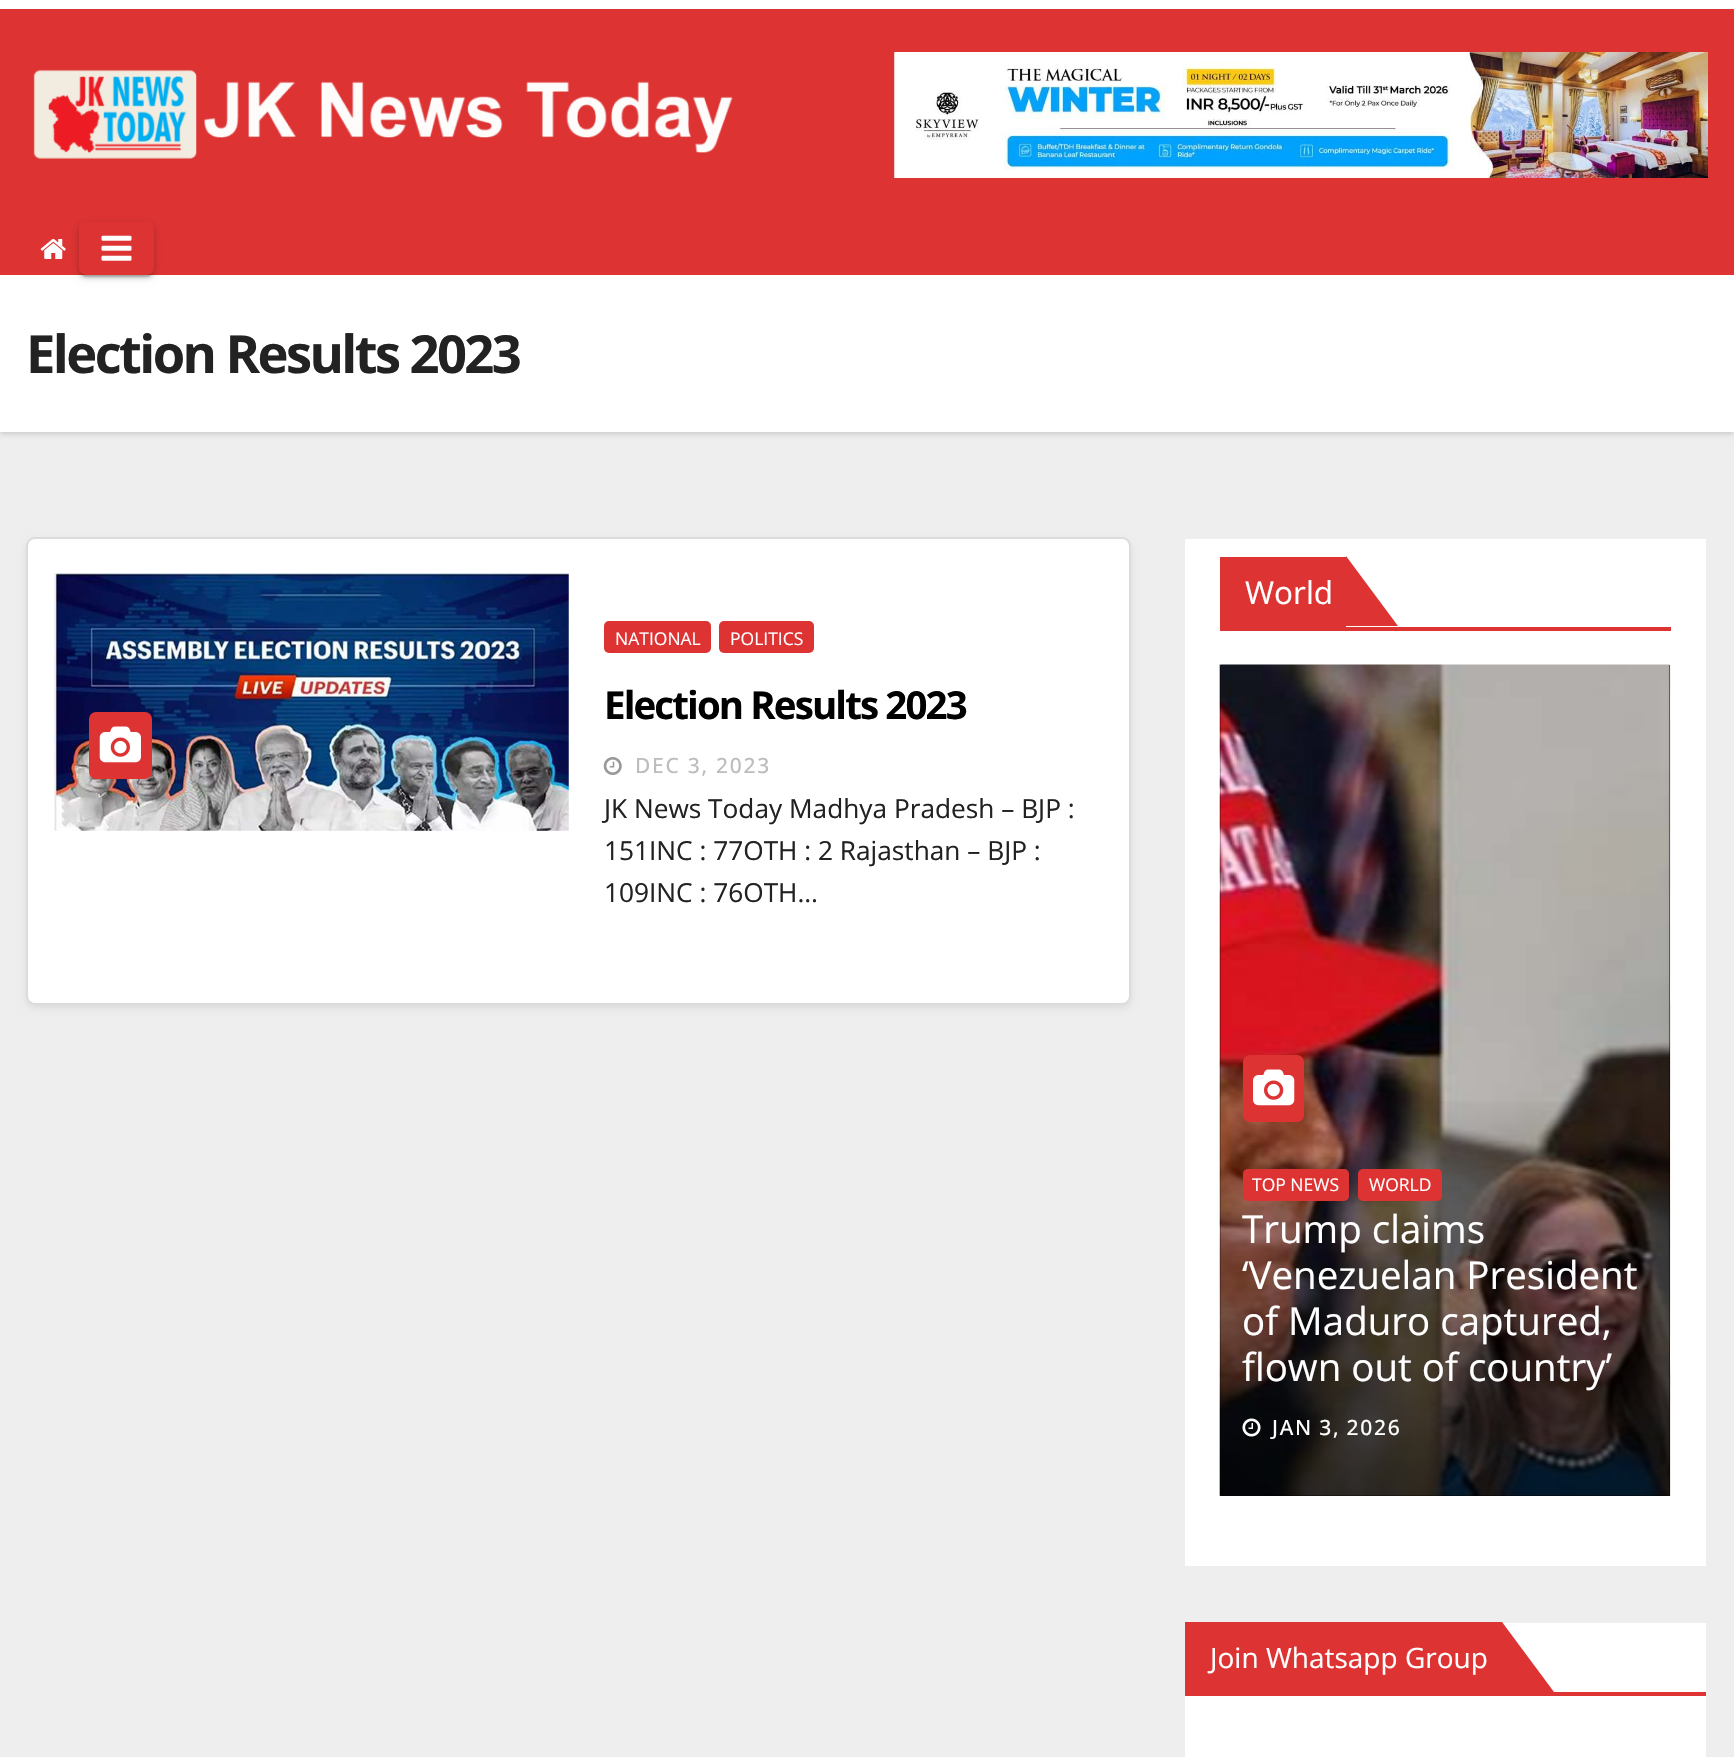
#include "include/core/SkBlurTypes.h"
#include "include/core/SkCanvas.h"
#include "include/core/SkData.h"
#include "include/core/SkFont.h"
#include "include/core/SkFontMgr.h"
#include "include/core/SkImage.h"
#include "include/core/SkMaskFilter.h"
#include "include/core/SkPaint.h"
#include "include/core/SkPathBuilder.h"
#include "include/core/SkTextBlob.h"
#include "include/effects/SkDashPathEffect.h"
#include "include/effects/SkGradientShader.h"
#include "include/utils/SkParsePath.h"

extern sk_sp<SkFontMgr> fontMgr;

void draw(SkCanvas* canvas) {
  SkPaint p;
  p.setAntiAlias(true);
  auto spacedText = [&](const char* s, float x, float y, const SkFont& font, const SkPaint& ink, float letter, float word) {
    std::vector<SkGlyphID> glyphs(font.countText(s, strlen(s), SkTextEncoding::kUTF8));
    std::vector<float> xs(glyphs.size());
    font.textToGlyphs(s, strlen(s), SkTextEncoding::kUTF8, glyphs);
    font.getXPos(glyphs, xs, x);
    float extra = 0;
    for (size_t i = 0; i < glyphs.size(); i++) {
      xs[i] += extra;
      extra += letter + word * (glyphs[i] == font.unicharToGlyph(' '));
    }
    canvas->drawTextBlob(SkTextBlob::MakeFromPosHGlyphs(glyphs, xs, y, font), 0, 0, ink);
  };
  canvas->clear(SkColorSetRGB(238, 238, 238));
  p.setColor(SK_ColorWHITE);
  canvas->drawRect(SkRect::MakeLTRB(0, 0, 1734, 9), p);
  p.setColor(SkColorSetRGB(221, 51, 51));
  canvas->drawRect(SkRect::MakeLTRB(0, 9, 1734, 222), p);
  canvas->drawImageRect(SkImages::DeferredFromEncodedData(SkData::MakeFromFileName("images/1.png")), SkRect::MakeLTRB(33, 69, 733, 159), SkSamplingOptions());
  canvas->drawImageRect(SkImages::DeferredFromEncodedData(SkData::MakeFromFileName("images/2.png")), SkRect::MakeLTRB(894, 52, 1708, 178), SkSamplingOptions());
  p.setColor(SkColorSetARGB(38, 0, 0, 0));
  p.setMaskFilter(SkMaskFilter::MakeBlur(kNormal_SkBlurStyle, 2.5f));
  canvas->drawRect(SkRect::MakeLTRB(0, 277, 1734, 434), p);
  p.setMaskFilter(nullptr);
  p.setColor(SkColorSetRGB(221, 51, 51));
  canvas->drawRect(SkRect::MakeLTRB(0, 222, 1734, 275), p);
  canvas->drawImageRect(SkImages::DeferredFromEncodedData(SkData::MakeFromFileName("images/3.png")), SkRect::MakeLTRB(40, 239, 66, 259), SkSamplingOptions());
  p.setColor(SK_ColorWHITE);
  canvas->drawRect(SkRect::MakeLTRB(0, 275, 1734, 432), p);
  canvas->save();
  canvas->clipPath(SkPathBuilder(SkPathFillType::kEvenOdd).moveTo(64, 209).lineTo(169, 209).lineTo(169, 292).lineTo(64, 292).close().moveTo(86, 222).lineTo(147, 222).cubicTo(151, 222, 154, 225, 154, 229).lineTo(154, 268).cubicTo(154, 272, 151, 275, 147, 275).lineTo(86, 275).cubicTo(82, 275, 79, 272, 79, 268).lineTo(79, 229).cubicTo(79, 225, 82, 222, 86, 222).close().detach(), true);
  p.setColor(SkColorSetARGB(31, 0, 0, 0));
  p.setMaskFilter(SkMaskFilter::MakeBlur(kNormal_SkBlurStyle, 4.5f));
  canvas->drawRoundRect(SkRect::MakeLTRB(79, 224, 154, 277), 7, 7, p);
  p.setMaskFilter(nullptr);
  canvas->restore();
  canvas->save();
  canvas->clipPath(SkPathBuilder(SkPathFillType::kEvenOdd).moveTo(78, 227).lineTo(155, 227).lineTo(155, 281).lineTo(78, 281).close().moveTo(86, 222).lineTo(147, 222).cubicTo(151, 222, 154, 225, 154, 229).lineTo(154, 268).cubicTo(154, 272, 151, 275, 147, 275).lineTo(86, 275).cubicTo(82, 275, 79, 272, 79, 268).lineTo(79, 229).cubicTo(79, 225, 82, 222, 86, 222).close().detach(), true);
  p.setColor(SkColorSetARGB(51, 0, 0, 0));
  p.setMaskFilter(SkMaskFilter::MakeBlur(kNormal_SkBlurStyle, 1));
  canvas->drawRoundRect(SkRect::MakeLTRB(82, 231, 151, 277), 4, 4, p);
  p.setMaskFilter(nullptr);
  canvas->restore();
  canvas->save();
  canvas->clipPath(SkPathBuilder(SkPathFillType::kEvenOdd).moveTo(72, 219).lineTo(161, 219).lineTo(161, 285).lineTo(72, 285).close().moveTo(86, 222).lineTo(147, 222).cubicTo(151, 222, 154, 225, 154, 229).lineTo(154, 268).cubicTo(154, 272, 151, 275, 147, 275).lineTo(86, 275).cubicTo(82, 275, 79, 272, 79, 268).lineTo(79, 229).cubicTo(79, 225, 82, 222, 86, 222).close().detach(), true);
  p.setColor(SkColorSetARGB(36, 0, 0, 0));
  p.setMaskFilter(SkMaskFilter::MakeBlur(kNormal_SkBlurStyle, 2));
  canvas->drawRoundRect(SkRect::MakeLTRB(79, 226, 154, 278), 7, 7, p);
  p.setMaskFilter(nullptr);
  canvas->restore();
  canvas->drawImageRect(SkImages::DeferredFromEncodedData(SkData::MakeFromFileName("images/4.png")), SkRect::MakeLTRB(101, 235, 132, 261), SkSamplingOptions());
  p.setColor(SkColorSetARGB(20, 0, 0, 0));
  p.setMaskFilter(SkMaskFilter::MakeBlur(kNormal_SkBlurStyle, 3.5f));
  canvas->drawRoundRect(SkRect::MakeLTRB(26, 541, 1131, 1008), 9, 9, p);
  p.setMaskFilter(nullptr);
  p.setColor(SK_ColorWHITE);
  canvas->drawRoundRect(SkRect::MakeLTRB(27, 538, 1130, 1004), 8, 8, p);
  p.setStyle(SkPaint::kStroke_Style);
  p.setStrokeWidth(2);
  p.setColor(SkColorSetRGB(221, 220, 220));
  canvas->drawRoundRect(SkRect::MakeLTRB(27, 538, 1130, 1004), 8, 8, p);
  canvas->drawImageRect(SkImages::DeferredFromEncodedData(SkData::MakeFromFileName("images/5.png")), SkRect::MakeLTRB(54, 573, 569, 831), SkSamplingOptions());
  p.setStyle(SkPaint::kFill_Style);
  p.setColor(SkColorSetRGB(221, 51, 51));
  canvas->drawRoundRect(SkRect::MakeLTRB(89, 712, 152, 779), 7, 7, p);
  canvas->drawImageRect(SkImages::DeferredFromEncodedData(SkData::MakeFromFileName("images/6.png")), SkRect::MakeLTRB(99, 726, 141, 763), SkSamplingOptions());
  canvas->drawRoundRect(SkRect::MakeLTRB(604, 621, 711, 653), 5, 5, p);
  canvas->drawRoundRect(SkRect::MakeLTRB(719, 621, 814, 653), 5, 5, p);
  canvas->drawImageRect(SkImages::DeferredFromEncodedData(SkData::MakeFromFileName("images/7.png")), SkRect::MakeLTRB(603, 757, 622, 775), SkSamplingOptions());
  p.setColor(SK_ColorWHITE);
  canvas->drawRect(SkRect::MakeLTRB(1185, 539, 1706, 1566), p);
  p.setColor(SkColorSetRGB(221, 51, 51));
  canvas->drawRect(SkRect::MakeLTRB(1220, 627, 1671, 631), p);
  canvas->drawRect(SkRect::MakeLTRB(1220, 557, 1346, 627), p);
  canvas->drawPath(SkPathBuilder().moveTo(1346, 626).lineTo(1346, 556).lineTo(1398, 626).close().detach(), p);
  p.setColor(SK_ColorBLACK);
  canvas->drawRect(SkRect::MakeLTRB(1220, 665, 1670, 1496), p);
  canvas->drawImageRect(SkImages::DeferredFromEncodedData(SkData::MakeFromFileName("images/8.png")), SkRect::MakeLTRB(1219, 664, 1670, 1496), SkSamplingOptions());
  {
    const SkColor colors[] = {SkColorSetARGB(0, 0, 0, 0), SkColorSetARGB(102, 0, 0, 0), SkColorSetARGB(179, 0, 0, 0)};
    const float stops[] = {0, 0.5f, 1};
    const SkPoint ends[] = {{1445, 1090}, {1445, 1496}};
    p.setShader(SkGradientShader::MakeLinear(ends, colors, stops, 3, SkTileMode::kClamp));
    p.setAlpha(255);
  }
  canvas->drawRect(SkRect::MakeLTRB(1220, 1101, 1670, 1496), p);
  p.setShader(nullptr);
  p.setColor(SkColorSetRGB(221, 51, 51));
  canvas->drawRoundRect(SkRect::MakeLTRB(1243, 1055, 1304, 1122), 7, 7, p);
  canvas->drawImageRect(SkImages::DeferredFromEncodedData(SkData::MakeFromFileName("images/9.png")), SkRect::MakeLTRB(1253, 1069, 1295, 1106), SkSamplingOptions());
  canvas->drawRoundRect(SkRect::MakeLTRB(1243, 1169, 1349, 1201), 5, 5, p);
  canvas->drawRoundRect(SkRect::MakeLTRB(1358, 1169, 1442, 1201), 5, 5, p);
  canvas->drawImageRect(SkImages::DeferredFromEncodedData(SkData::MakeFromFileName("images/10.png")), SkRect::MakeLTRB(1242, 1418, 1261, 1437), SkSamplingOptions());
  canvas->drawImageRect(SkImages::DeferredFromEncodedData(SkData::MakeFromFileName("images/11.png")), SkRect::MakeLTRB(1670, 665, 1671, 1496), SkSamplingOptions());
  p.setColor(SK_ColorWHITE);
  canvas->drawRect(SkRect::MakeLTRB(1185, 1623, 1706, 1757), p);
  p.setColor(SkColorSetRGB(221, 51, 51));
  canvas->drawRect(SkRect::MakeLTRB(1185, 1692, 1706, 1696), p);
  canvas->drawRect(SkRect::MakeLTRB(1185, 1622, 1502, 1692), p);
  canvas->drawPath(SkPathBuilder().moveTo(1502, 1692).lineTo(1502, 1622).lineTo(1554, 1692).close().detach(), p);
  SkFont font1(fontMgr->matchFamilyStyle("Open Sans", SkFontStyle::Bold()), 52.5f);
  font1.setSubpixel(true);
  p.setColor(SkColorSetRGB(34, 34, 34));
  spacedText("Election Results 2023", 26, 373, font1, p, -2.6f, 0);
  SkFont font2(fontMgr->matchFamilyStyle("Open Sans", SkFontStyle::Normal()), 17.5f);
  font2.setSubpixel(true);
  p.setColor(SK_ColorWHITE);
  canvas->drawString("NATIONAL", 615, 645, font2, p);
  canvas->drawString("POLITICS", 730, 645, font2, p);
  SkFont font3(fontMgr->matchFamilyStyle("Open Sans", SkFontStyle::Bold()), 38.5f);
  font3.setSubpixel(true);
  p.setColor(SK_ColorBLACK);
  spacedText("Election Results 2023", 604, 719, font3, p, -1.9f, 0);
  SkFont font4(fontMgr->matchFamilyStyle("Open Sans", SkFontStyle(500, SkFontStyle::kNormal_Width, SkFontStyle::kUpright_Slant)), 21);
  font4.setSubpixel(true);
  p.setColor(SkColorSetRGB(189, 189, 189));
  spacedText("DEC 3, 2023", 635, 773, font4, p, 1.75f, 0);
  SkFont font5(fontMgr->matchFamilyStyle("Open Sans", SkFontStyle::Normal()), 26.25f);
  font5.setSubpixel(true);
  p.setColor(SkColorSetRGB(34, 34, 34));
  canvas->drawString("JK News Today Madhya Pradesh – BJP :", 604, 818, font5, p);
  canvas->drawString("151INC : 77OTH : 2 Rajasthan – BJP :", 604, 860, font5, p);
  canvas->drawString("109INC : 76OTH…", 604, 902, font5, p);
  SkFont font6(fontMgr->matchFamilyStyle("Open Sans", SkFontStyle::Normal()), 31.5f);
  font6.setSubpixel(true);
  p.setColor(SK_ColorWHITE);
  canvas->drawString("World", 1245, 604, font6, p);
  canvas->drawString("TOP NEWS", 1252, 1191, font2, p);
  canvas->drawString("WORLD", 1369, 1191, font2, p);
  SkFont font7(fontMgr->matchFamilyStyle("Open Sans", SkFontStyle::Normal()), 38.5f);
  font7.setSubpixel(true);
  canvas->drawString("Trump claims", 1242, 1243, font7, p);
  canvas->drawString("‘Venezuelan President", 1242, 1289, font7, p);
  canvas->drawString("of Maduro captured,", 1242, 1335, font7, p);
  canvas->drawString("flown out of country’", 1242, 1381, font7, p);
  spacedText("JAN 3, 2026", 1272, 1435, font4, p, 1.75f, -1);
  SkFont font8(fontMgr->matchFamilyStyle("Open Sans", SkFontStyle::Normal()), 28);
  font8.setSubpixel(true);
  canvas->drawString("Join Whatsapp Group", 1210, 1668, font8, p);
}
